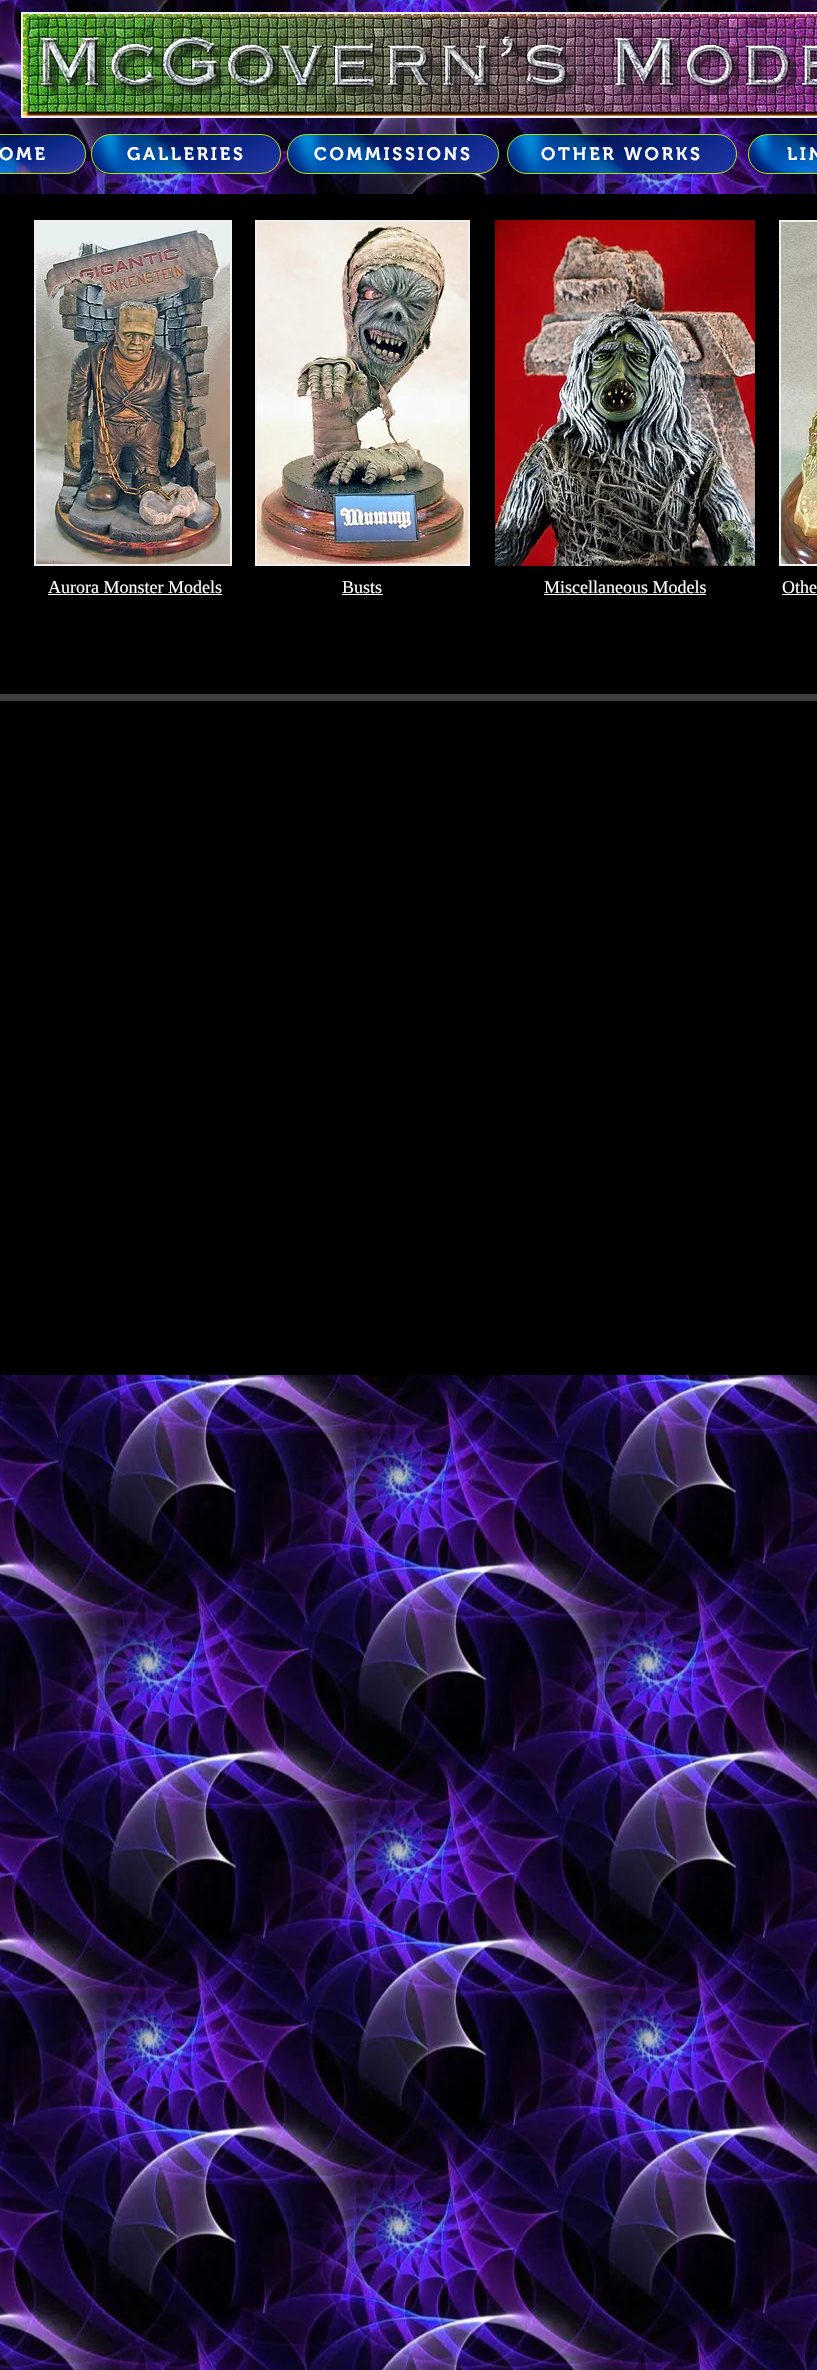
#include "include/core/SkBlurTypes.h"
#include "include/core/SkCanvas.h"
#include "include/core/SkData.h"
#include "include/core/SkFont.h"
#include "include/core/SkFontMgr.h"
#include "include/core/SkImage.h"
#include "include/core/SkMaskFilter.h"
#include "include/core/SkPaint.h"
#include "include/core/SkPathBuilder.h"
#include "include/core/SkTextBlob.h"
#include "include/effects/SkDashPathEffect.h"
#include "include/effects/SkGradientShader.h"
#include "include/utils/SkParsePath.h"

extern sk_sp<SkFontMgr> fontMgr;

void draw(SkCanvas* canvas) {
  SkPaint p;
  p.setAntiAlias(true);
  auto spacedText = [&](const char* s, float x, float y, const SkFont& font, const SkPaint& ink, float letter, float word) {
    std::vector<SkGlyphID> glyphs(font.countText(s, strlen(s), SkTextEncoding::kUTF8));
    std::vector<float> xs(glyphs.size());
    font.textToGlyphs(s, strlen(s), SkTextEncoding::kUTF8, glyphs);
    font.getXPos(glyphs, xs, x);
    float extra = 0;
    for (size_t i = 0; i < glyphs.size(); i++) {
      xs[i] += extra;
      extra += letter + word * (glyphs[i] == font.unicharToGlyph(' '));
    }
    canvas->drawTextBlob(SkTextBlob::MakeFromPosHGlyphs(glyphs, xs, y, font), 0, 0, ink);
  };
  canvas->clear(SK_ColorWHITE);
  canvas->drawImageRect(SkImages::DeferredFromEncodedData(SkData::MakeFromFileName("images/1.png")), SkRect::MakeLTRB(0, 0, 817, 2370), SkSamplingOptions());
  p.setColor(SkColorSetRGB(239, 239, 239));
  canvas->drawRect(SkRect::MakeLTRB(21, 12, 817, 118), p);
  canvas->drawImageRect(SkImages::DeferredFromEncodedData(SkData::MakeFromFileName("images/2.png")), SkRect::MakeLTRB(23, 14, 817, 116), SkSamplingOptions());
  canvas->drawImageRect(SkImages::DeferredFromEncodedData(SkData::MakeFromFileName("images/3.png")), SkRect::MakeLTRB(0, 135, 86, 174), SkSamplingOptions());
  p.setStyle(SkPaint::kStroke_Style);
  p.setStrokeWidth(1);
  p.setColor(SkColorSetRGB(176, 226, 0));
  canvas->drawRoundRect(SkRect::MakeLTRB(-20.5f, 134.5f, 85.5f, 173.5f), 19.5f, 19.5f, p);
  canvas->drawImageRect(SkImages::DeferredFromEncodedData(SkData::MakeFromFileName("images/4.png")), SkRect::MakeLTRB(92, 135, 281, 174), SkSamplingOptions());
  canvas->drawRoundRect(SkRect::MakeLTRB(91.5f, 134.5f, 280.5f, 173.5f), 19.5f, 19.5f, p);
  canvas->drawImageRect(SkImages::DeferredFromEncodedData(SkData::MakeFromFileName("images/5.png")), SkRect::MakeLTRB(288, 135, 499, 174), SkSamplingOptions());
  canvas->drawRoundRect(SkRect::MakeLTRB(287.5f, 134.5f, 498.5f, 173.5f), 19.5f, 19.5f, p);
  canvas->drawImageRect(SkImages::DeferredFromEncodedData(SkData::MakeFromFileName("images/6.png")), SkRect::MakeLTRB(508, 135, 737, 174), SkSamplingOptions());
  canvas->drawRoundRect(SkRect::MakeLTRB(507.5f, 134.5f, 736.5f, 173.5f), 19.5f, 19.5f, p);
  canvas->drawImageRect(SkImages::DeferredFromEncodedData(SkData::MakeFromFileName("images/7.png")), SkRect::MakeLTRB(749, 135, 817, 174), SkSamplingOptions());
  canvas->drawRoundRect(SkRect::MakeLTRB(748.5f, 134.5f, 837.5f, 173.5f), 19.5f, 19.5f, p);
  p.setStyle(SkPaint::kFill_Style);
  p.setColor(SK_ColorBLACK);
  canvas->drawRect(SkRect::MakeLTRB(0, 194, 817, 694), p);
  p.setColor(SkColorSetRGB(239, 239, 239));
  canvas->drawRect(SkRect::MakeLTRB(34, 220, 232, 566), p);
  canvas->drawImageRect(SkImages::DeferredFromEncodedData(SkData::MakeFromFileName("images/8.png")), SkRect::MakeLTRB(36, 222, 230, 564), SkSamplingOptions());
  canvas->drawRect(SkRect::MakeLTRB(255, 220, 470, 566), p);
  canvas->drawImageRect(SkImages::DeferredFromEncodedData(SkData::MakeFromFileName("images/9.png")), SkRect::MakeLTRB(257, 222, 468, 564), SkSamplingOptions());
  canvas->drawImageRect(SkImages::DeferredFromEncodedData(SkData::MakeFromFileName("images/10.png")), SkRect::MakeLTRB(495, 220, 755, 566), SkSamplingOptions());
  canvas->drawRect(SkRect::MakeLTRB(779, 220, 817, 566), p);
  canvas->drawImageRect(SkImages::DeferredFromEncodedData(SkData::MakeFromFileName("images/11.png")), SkRect::MakeLTRB(781, 222, 817, 564), SkSamplingOptions());
  p.setColor(SK_ColorWHITE);
  canvas->drawRect(SkRect::MakeLTRB(48, 594, 222, 595), p);
  canvas->drawRect(SkRect::MakeLTRB(342, 594, 383, 595), p);
  canvas->drawRect(SkRect::MakeLTRB(544, 594, 706, 595), p);
  canvas->drawRect(SkRect::MakeLTRB(782, 594, 817, 595), p);
  p.setColor(SK_ColorBLACK);
  canvas->drawRect(SkRect::MakeLTRB(0, 701, 817, 1375), p);
  p.setColor(SkColorSetRGB(62, 62, 62));
  canvas->drawRect(SkRect::MakeLTRB(0, 694, 817, 701), p);
  SkFont font1(fontMgr->matchFamilyStyle("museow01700", SkFontStyle(600, SkFontStyle::kNormal_Width, SkFontStyle::kUpright_Slant)), 18);
  font1.setSubpixel(true);
  p.setColor(SK_ColorWHITE);
  spacedText("OME", -1, 160, font1, p, 2.75f, 0);
  spacedText("GALLERIES", 127, 160, font1, p, 2.75f, 0);
  spacedText("COMMISSIONS", 314, 160, font1, p, 2.75f, 0);
  spacedText("OTHER WORKS", 541, 160, font1, p, 2.75f, 0);
  spacedText("LIN", 787, 160, font1, p, 2.75f, 0);
  SkFont font2(fontMgr->matchFamilyStyle("Liberation Serif", SkFontStyle::Normal()), 18);
  font2.setSubpixel(true);
  canvas->drawString("Aurora Monster Models", 48, 593, font2, p);
  canvas->drawString("Busts", 342, 593, font2, p);
  canvas->drawString("Miscellaneous Models", 544, 593, font2, p);
  canvas->drawString("Othe", 782, 593, font2, p);
}
